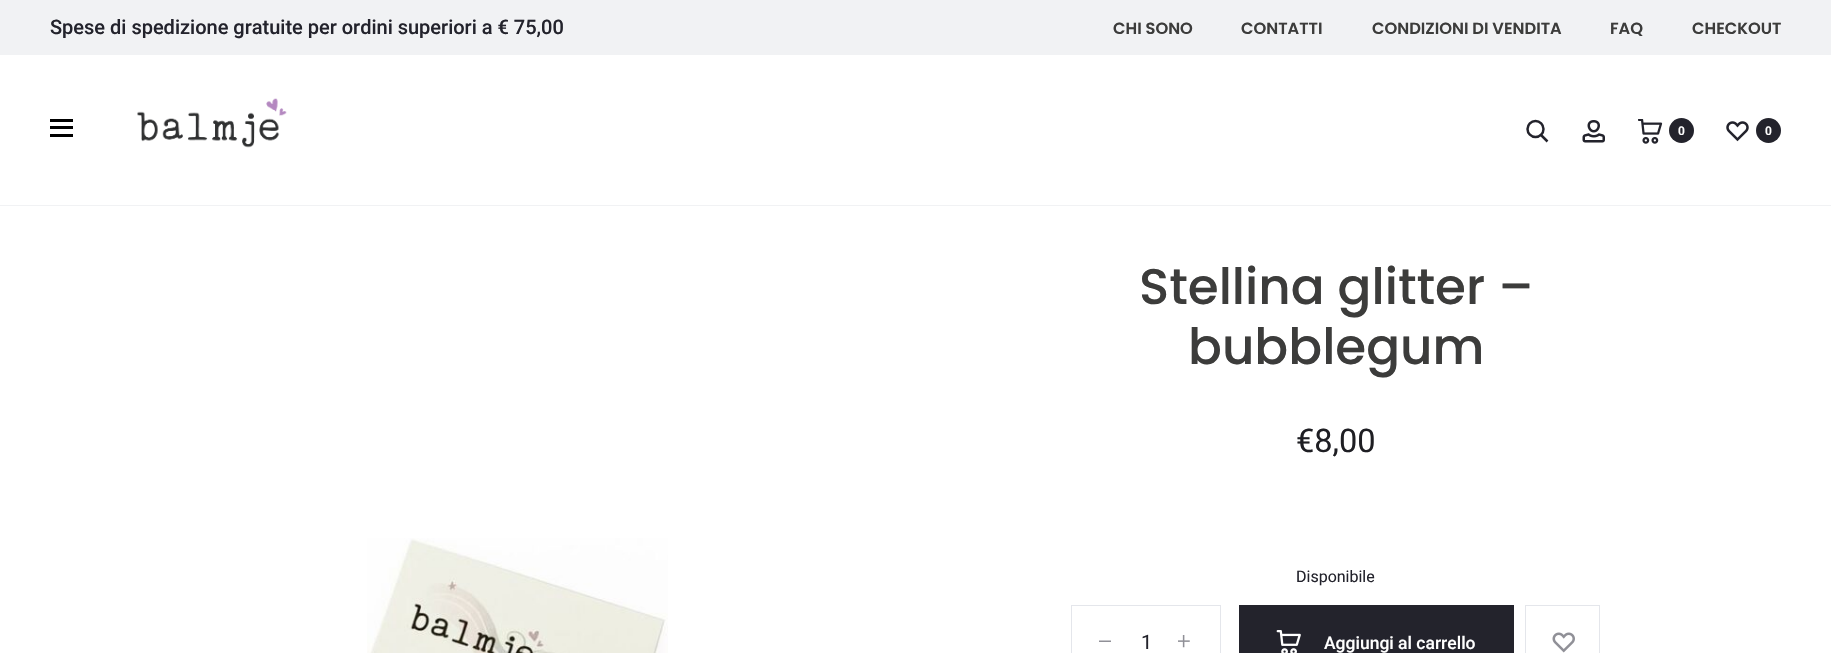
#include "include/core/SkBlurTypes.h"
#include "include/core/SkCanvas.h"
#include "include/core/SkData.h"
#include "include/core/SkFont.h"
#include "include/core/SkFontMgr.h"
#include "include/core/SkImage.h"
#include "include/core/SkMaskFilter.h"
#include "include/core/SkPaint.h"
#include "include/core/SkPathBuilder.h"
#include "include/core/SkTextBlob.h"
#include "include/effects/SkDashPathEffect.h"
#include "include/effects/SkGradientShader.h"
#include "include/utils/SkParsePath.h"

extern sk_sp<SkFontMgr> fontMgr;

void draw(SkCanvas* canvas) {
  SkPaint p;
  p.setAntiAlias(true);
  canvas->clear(SK_ColorWHITE);
  p.setColor(SkColorSetRGB(241, 242, 244));
  canvas->drawRect(SkRect::MakeLTRB(0, 0, 1831, 55), p);
  canvas->drawRect(SkRect::MakeLTRB(0, 205, 1831, 206), p);
  p.setColor(SK_ColorBLACK);
  canvas->drawRect(SkRect::MakeLTRB(50, 126, 73, 129), p);
  canvas->drawRect(SkRect::MakeLTRB(50, 119, 73, 122), p);
  canvas->drawRect(SkRect::MakeLTRB(50, 134, 73, 137), p);
  canvas->drawImageRect(SkImages::DeferredFromEncodedData(SkData::MakeFromFileName("images/1.png")), SkRect::MakeLTRB(137, 98, 287, 148), SkSamplingOptions());
  p.setStyle(SkPaint::kStroke_Style);
  p.setStrokeWidth(2.5f);
  p.setColor(SkColorSetRGB(35, 35, 44));
  canvas->drawCircle(1535.5f, 129, 8, p);
  canvas->drawPath(SkPathBuilder().moveTo(1541, 135).lineTo(1547.5f, 141.5f).detach(), p);
  canvas->drawImageRect(SkImages::DeferredFromEncodedData(SkData::MakeFromFileName("images/2.png")), SkRect::MakeLTRB(1582, 120, 1605, 143), SkSamplingOptions());
  canvas->drawImageRect(SkImages::DeferredFromEncodedData(SkData::MakeFromFileName("images/3.png")), SkRect::MakeLTRB(1638, 119, 1663, 144), SkSamplingOptions());
  p.setStyle(SkPaint::kFill_Style);
  canvas->drawCircle(1681.5f, 130.5f, 12.5f, p);
  canvas->drawImageRect(SkImages::DeferredFromEncodedData(SkData::MakeFromFileName("images/4.png")), SkRect::MakeLTRB(1726, 121, 1749, 142), SkSamplingOptions());
  canvas->drawCircle(1768.5f, 130.5f, 12.5f, p);
  canvas->drawImageRect(SkImages::DeferredFromEncodedData(SkData::MakeFromFileName("images/5.png")), SkRect::MakeLTRB(367, 538, 668, 653), SkSamplingOptions());
  p.setStyle(SkPaint::kStroke_Style);
  p.setStrokeWidth(1);
  p.setColor(SkColorSetRGB(228, 230, 235));
  canvas->drawRect(SkRect::MakeLTRB(1071.5f, 605.5f, 1220.5f, 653.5f), p);
  p.setStyle(SkPaint::kFill_Style);
  p.setColor(SkColorSetRGB(144, 144, 151));
  canvas->drawPath(SkPathBuilder().moveTo(1111, 640.5f).lineTo(1099, 640.5f).lineTo(1099, 642).lineTo(1111, 642).detach(), p);
  canvas->drawImageRect(SkImages::DeferredFromEncodedData(SkData::MakeFromFileName("images/6.png")), SkRect::MakeLTRB(1178, 635, 1190, 648), SkSamplingOptions());
  p.setColor(SkColorSetRGB(35, 35, 44));
  canvas->drawRect(SkRect::MakeLTRB(1239, 605, 1514, 653), p);
  canvas->drawImageRect(SkImages::DeferredFromEncodedData(SkData::MakeFromFileName("images/7.png")), SkRect::MakeLTRB(1276, 630, 1301, 653), SkSamplingOptions());
  p.setStyle(SkPaint::kStroke_Style);
  p.setColor(SkColorSetRGB(228, 230, 235));
  canvas->drawRect(SkRect::MakeLTRB(1525.5f, 605.5f, 1599.5f, 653.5f), p);
  canvas->drawImageRect(SkImages::DeferredFromEncodedData(SkData::MakeFromFileName("images/8.png")), SkRect::MakeLTRB(1552, 632, 1575, 653), SkSamplingOptions());
  SkFont font1(fontMgr->matchFamilyStyle("Roboto", SkFontStyle(500, SkFontStyle::kNormal_Width, SkFontStyle::kUpright_Slant)), 20);
  font1.setSubpixel(true);
  p.setStyle(SkPaint::kFill_Style);
  p.setColor(SkColorSetRGB(35, 35, 44));
  canvas->drawString("Spese di spedizione gratuite per ordini superiori a € 75,00", 50, 34, font1, p);
  SkFont font2(fontMgr->matchFamilyStyle("Poppins", SkFontStyle(600, SkFontStyle::kNormal_Width, SkFontStyle::kUpright_Slant)), 16.25f);
  font2.setSubpixel(true);
  p.setColor(SkColorSetRGB(60, 60, 59));
  canvas->drawString("CHI SONO", 1113, 34, font2, p);
  canvas->drawString("CONTATTI", 1241, 34, font2, p);
  canvas->drawString("CONDIZIONI DI VENDITA", 1372, 34, font2, p);
  canvas->drawString("FAQ", 1610, 34, font2, p);
  canvas->drawString("CHECKOUT", 1692, 34, font2, p);
  SkFont font3(fontMgr->matchFamilyStyle("Roboto", SkFontStyle(600, SkFontStyle::kNormal_Width, SkFontStyle::kUpright_Slant)), 12);
  font3.setSubpixel(true);
  p.setColor(SK_ColorWHITE);
  canvas->drawString("0", 1678, 135, font3, p);
  canvas->drawString("0", 1765, 135, font3, p);
  SkFont font4(fontMgr->matchFamilyStyle("Poppins", SkFontStyle(500, SkFontStyle::kNormal_Width, SkFontStyle::kUpright_Slant)), 50);
  font4.setSubpixel(true);
  p.setColor(SkColorSetRGB(60, 60, 59));
  canvas->drawString("Stellina glitter –", 1139, 304, font4, p);
  canvas->drawString("bubblegum", 1188, 364, font4, p);
  SkFont font5(fontMgr->matchFamilyStyle("Roboto", SkFontStyle::Normal()), 32.5f);
  font5.setSubpixel(true);
  p.setColor(SkColorSetRGB(30, 30, 35));
  canvas->drawString("€8,00", 1296, 452, font5, p);
  SkFont font6(fontMgr->matchFamilyStyle("Roboto", SkFontStyle::Normal()), 16);
  font6.setSubpixel(true);
  p.setColor(SkColorSetRGB(35, 35, 44));
  canvas->drawString("Disponibile", 1296, 582, font6, p);
  SkFont font7(fontMgr->matchFamilyStyle("Roboto", SkFontStyle::Normal()), 20);
  font7.setSubpixel(true);
  canvas->drawString("1", 1141, 649, font7, p);
  SkFont font8(fontMgr->matchFamilyStyle("Roboto", SkFontStyle(500, SkFontStyle::kNormal_Width, SkFontStyle::kUpright_Slant)), 17.5f);
  font8.setSubpixel(true);
  p.setColor(SK_ColorWHITE);
  canvas->drawString("Aggiungi al carrello", 1324, 649, font8, p);
}
